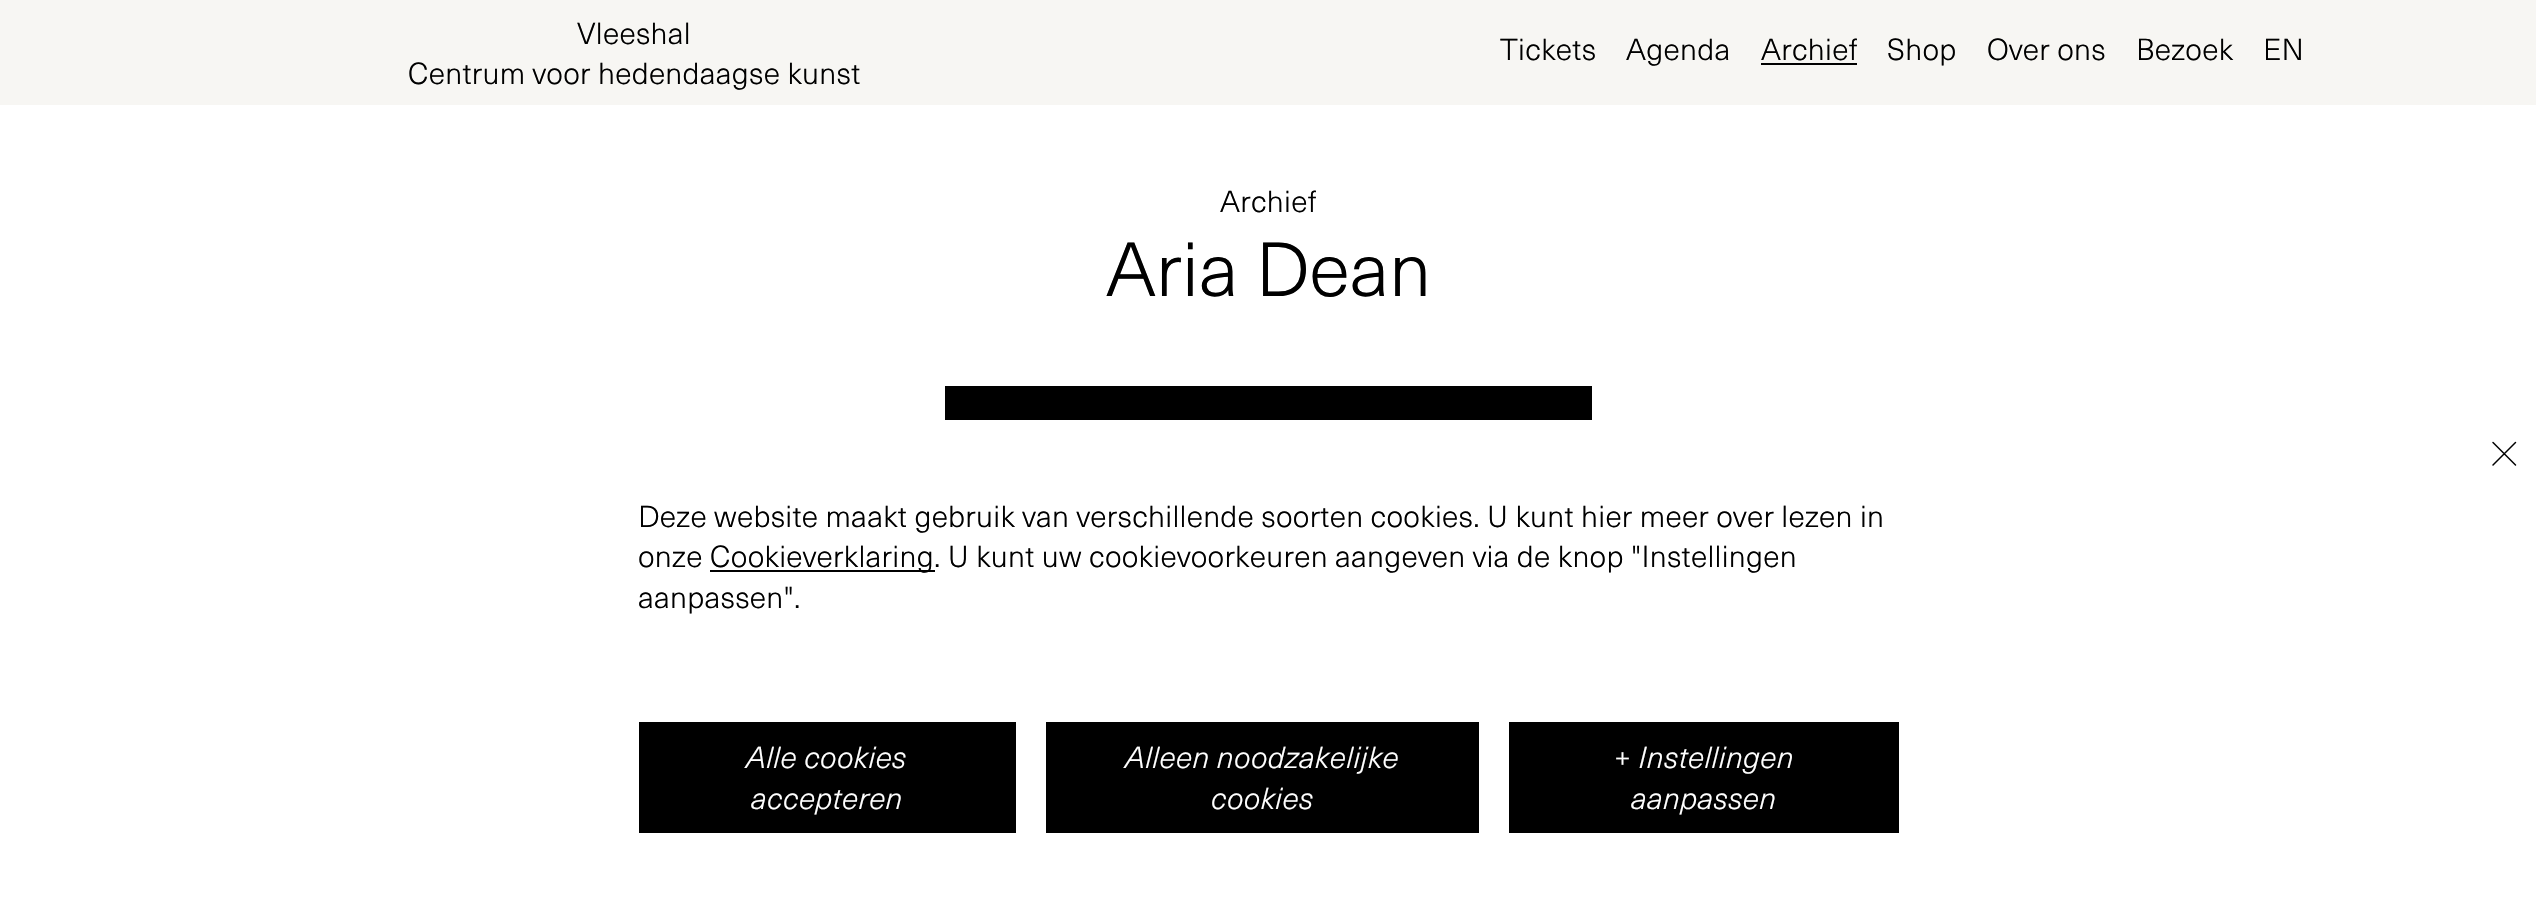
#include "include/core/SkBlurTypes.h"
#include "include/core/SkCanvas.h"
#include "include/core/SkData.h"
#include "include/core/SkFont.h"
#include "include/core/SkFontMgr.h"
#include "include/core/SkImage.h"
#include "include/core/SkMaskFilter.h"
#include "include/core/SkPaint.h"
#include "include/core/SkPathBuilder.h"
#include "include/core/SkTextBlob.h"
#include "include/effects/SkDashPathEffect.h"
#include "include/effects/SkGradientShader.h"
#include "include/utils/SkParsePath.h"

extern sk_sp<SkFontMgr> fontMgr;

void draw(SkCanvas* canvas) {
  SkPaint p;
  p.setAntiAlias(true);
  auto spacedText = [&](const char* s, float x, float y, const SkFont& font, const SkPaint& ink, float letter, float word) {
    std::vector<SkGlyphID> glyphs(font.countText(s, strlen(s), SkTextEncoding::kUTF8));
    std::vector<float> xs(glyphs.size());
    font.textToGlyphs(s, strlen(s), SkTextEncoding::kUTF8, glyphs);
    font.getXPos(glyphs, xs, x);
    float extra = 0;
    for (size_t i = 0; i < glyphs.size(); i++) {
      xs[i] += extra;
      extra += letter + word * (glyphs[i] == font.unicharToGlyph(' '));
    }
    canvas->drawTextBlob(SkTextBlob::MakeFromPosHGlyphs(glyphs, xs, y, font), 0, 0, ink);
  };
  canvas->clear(SK_ColorWHITE);
  p.setColor(SkColorSetRGB(247, 246, 243));
  canvas->drawRect(SkRect::MakeLTRB(0, 0, 2536, 105), p);
  p.setColor(SK_ColorBLACK);
  canvas->drawRect(SkRect::MakeLTRB(1761, 63, 1857, 65), p);
  canvas->drawRect(SkRect::MakeLTRB(945, 386, 1592, 420), p);
  p.setStyle(SkPaint::kStroke_Style);
  p.setStrokeWidth(1.5f);
  p.setStrokeCap(SkPaint::kRound_Cap);
  canvas->drawPath(SkPathBuilder().moveTo(2515.5f, 465).lineTo(2493, 442.5f).moveTo(2515.5f, 442.5f).lineTo(2493, 465).detach(), p);
  p.setStyle(SkPaint::kFill_Style);
  canvas->drawRect(SkRect::MakeLTRB(710, 570, 935, 572), p);
  canvas->drawRect(SkRect::MakeLTRB(639, 722, 1016, 833), p);
  canvas->drawRect(SkRect::MakeLTRB(1046, 722, 1479, 833), p);
  canvas->drawRect(SkRect::MakeLTRB(1509, 722, 1899, 833), p);
  SkFont font1(fontMgr->matchFamilyStyle("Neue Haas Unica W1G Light", SkFontStyle(300, SkFontStyle::kNormal_Width, SkFontStyle::kUpright_Slant)), 30);
  font1.setSubpixel(true);
  spacedText("Vleeshal", 577, 44, font1, p, 0.3f, 0);
  spacedText("Centrum voor hedendaagse kunst", 408, 84, font1, p, 0.3f, 0);
  spacedText("Tickets", 1500, 60, font1, p, 0.3f, 0);
  spacedText("Agenda", 1626, 60, font1, p, 0.3f, 0);
  spacedText("Archief", 1761, 60, font1, p, 0.3f, 0);
  spacedText("Shop", 1887, 60, font1, p, 0.3f, 0);
  spacedText("Over ons", 1987, 60, font1, p, 0.3f, 0);
  spacedText("Bezoek", 2136, 60, font1, p, 0.3f, 0);
  spacedText("EN", 2263, 60, font1, p, 0.3f, 0);
  spacedText("Archief", 1220, 212, font1, p, 0.3f, 0);
  SkFont font2(fontMgr->matchFamilyStyle("Neue Haas Unica W1G Light", SkFontStyle(300, SkFontStyle::kNormal_Width, SkFontStyle::kUpright_Slant)), 75);
  font2.setSubpixel(true);
  canvas->drawString("Aria Dean", 1106, 296, font2, p);
  spacedText("Deze website maakt gebruik van verschillende soorten cookies. U kunt hier meer over lezen in", 638, 527, font1, p, 0.3f, 0);
  spacedText("onze", 638, 567, font1, p, 0.3f, 0);
  spacedText("Cookieverklaring. U kunt uw cookievoorkeuren aangeven via de knop \"Instellingen", 710, 567, font1, p, 0.3f, 0);
  spacedText("aanpassen\".", 638, 608, font1, p, 0.3f, 0);
  SkFont font3(fontMgr->matchFamilyStyle("Neue Haas Unica W1G Light", SkFontStyle(300, SkFontStyle::kNormal_Width, SkFontStyle::kItalic_Slant)), 30);
  font3.setSubpixel(true);
  p.setColor(SK_ColorWHITE);
  spacedText("Alle cookies", 746, 768, font3, p, 0.3f, 0);
  spacedText("accepteren", 751, 809, font3, p, 0.3f, 0);
  spacedText("Alleen noodzakelijke", 1125, 768, font3, p, 0.3f, 0);
  spacedText("cookies", 1211, 809, font3, p, 0.3f, 0);
  spacedText("+ Instellingen", 1614, 768, font3, p, 0.3f, 0);
  spacedText("aanpassen", 1631, 809, font3, p, 0.3f, 0);
}
